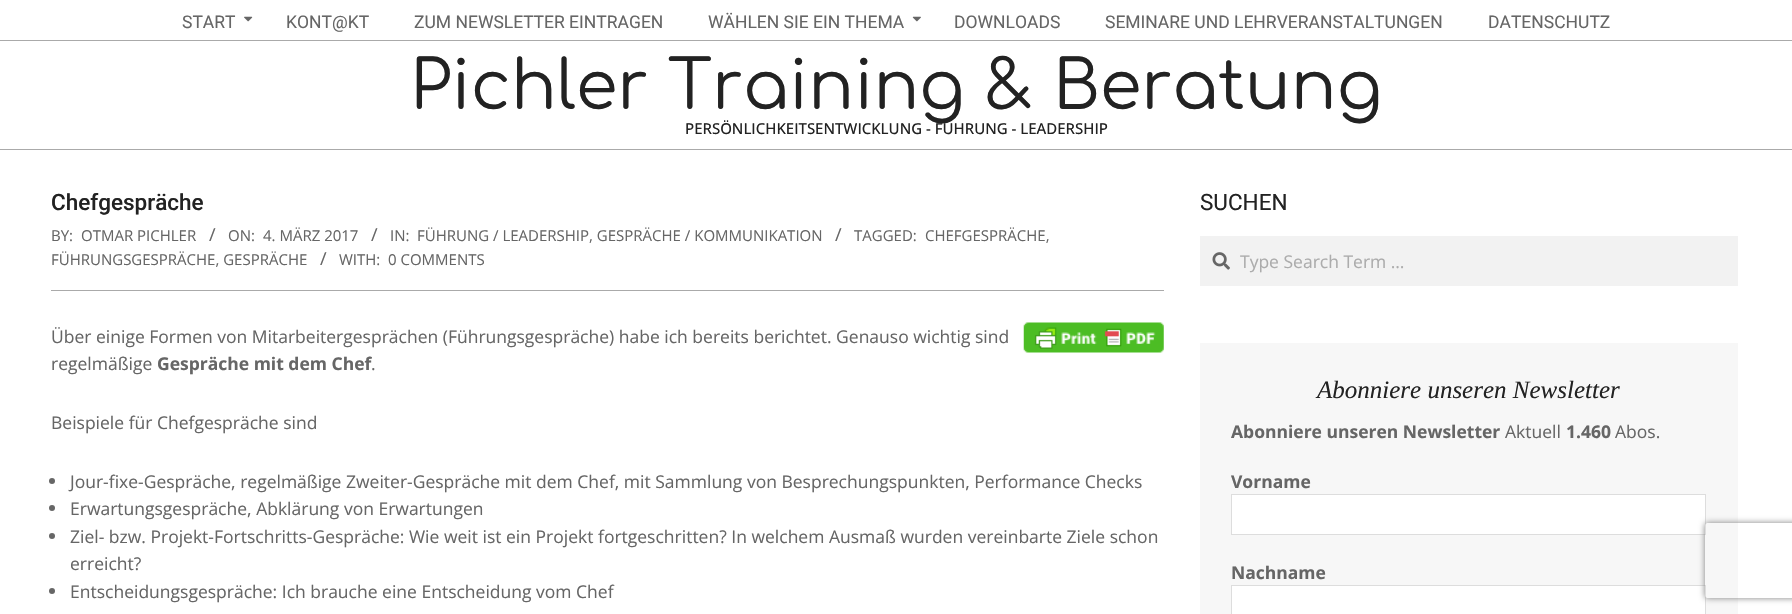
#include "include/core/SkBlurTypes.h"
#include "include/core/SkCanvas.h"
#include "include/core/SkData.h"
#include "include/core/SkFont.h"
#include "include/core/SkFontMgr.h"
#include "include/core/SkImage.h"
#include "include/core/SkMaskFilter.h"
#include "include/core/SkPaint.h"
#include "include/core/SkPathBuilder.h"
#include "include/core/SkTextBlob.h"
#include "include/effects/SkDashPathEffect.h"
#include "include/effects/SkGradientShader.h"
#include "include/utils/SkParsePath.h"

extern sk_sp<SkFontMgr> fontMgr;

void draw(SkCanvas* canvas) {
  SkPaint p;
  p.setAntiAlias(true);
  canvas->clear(SK_ColorWHITE);
  p.setColor(SkColorSetRGB(170, 170, 170));
  canvas->drawRect(SkRect::MakeLTRB(0, 40, 1792, 41), p);
  canvas->drawImageRect(SkImages::DeferredFromEncodedData(SkData::MakeFromFileName("images/1.png")), SkRect::MakeLTRB(244, 16, 253, 22), SkSamplingOptions());
  canvas->drawImageRect(SkImages::DeferredFromEncodedData(SkData::MakeFromFileName("images/2.png")), SkRect::MakeLTRB(912, 16, 921, 22), SkSamplingOptions());
  canvas->drawRect(SkRect::MakeLTRB(0, 149, 1792, 150), p);
  canvas->drawRect(SkRect::MakeLTRB(51, 290, 1164, 291), p);
  canvas->drawImageRect(SkImages::DeferredFromEncodedData(SkData::MakeFromFileName("images/3.png")), SkRect::MakeLTRB(1023, 322, 1164, 353), SkSamplingOptions());
  p.setColor(SkColorSetRGB(102, 102, 102));
  canvas->drawCircle(52, 481, 3, p);
  canvas->drawCircle(52, 508, 3, p);
  canvas->drawCircle(52, 536, 3, p);
  canvas->drawCircle(52, 591, 3, p);
  p.setColor(SkColorSetRGB(242, 242, 242));
  canvas->drawRect(SkRect::MakeLTRB(1200, 236, 1738, 286), p);
  canvas->drawImageRect(SkImages::DeferredFromEncodedData(SkData::MakeFromFileName("images/4.png")), SkRect::MakeLTRB(1212, 252, 1230, 270), SkSamplingOptions());
  p.setColor(SkColorSetRGB(247, 247, 247));
  canvas->drawRect(SkRect::MakeLTRB(1200, 343, 1738, 614), p);
  p.setColor(SK_ColorWHITE);
  canvas->drawRect(SkRect::MakeLTRB(1231.5f, 494.5f, 1705.5f, 534.5f), p);
  p.setStyle(SkPaint::kStroke_Style);
  p.setStrokeWidth(1);
  p.setColor(SkColorSetRGB(221, 221, 221));
  canvas->drawRect(SkRect::MakeLTRB(1231.5f, 494.5f, 1705.5f, 534.5f), p);
  p.setStyle(SkPaint::kFill_Style);
  p.setColor(SK_ColorWHITE);
  canvas->drawRect(SkRect::MakeLTRB(1231.5f, 585.5f, 1705.5f, 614.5f), p);
  p.setStyle(SkPaint::kStroke_Style);
  p.setColor(SkColorSetRGB(221, 221, 221));
  canvas->drawRect(SkRect::MakeLTRB(1231.5f, 585.5f, 1705.5f, 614.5f), p);
  canvas->save();
  canvas->clipPath(SkPathBuilder(SkPathFillType::kEvenOdd).moveTo(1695, 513).lineTo(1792, 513).lineTo(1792, 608).lineTo(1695, 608).close().moveTo(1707.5f, 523).lineTo(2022.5f, 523).cubicTo(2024, 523, 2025, 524, 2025, 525.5f).lineTo(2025, 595.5f).cubicTo(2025, 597, 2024, 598, 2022.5f, 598).lineTo(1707.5f, 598).cubicTo(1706, 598, 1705, 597, 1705, 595.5f).lineTo(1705, 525.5f).cubicTo(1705, 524, 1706, 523, 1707.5f, 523).close().detach(), true);
  p.setStyle(SkPaint::kFill_Style);
  p.setColor(SkColorSetRGB(128, 128, 128));
  p.setMaskFilter(SkMaskFilter::MakeBlur(kNormal_SkBlurStyle, 3));
  canvas->drawRoundRect(SkRect::MakeLTRB(1705, 523, 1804, 598), 2.5f, 2.5f, p);
  p.setMaskFilter(nullptr);
  canvas->restore();
  SkFont font1(fontMgr->matchFamilyStyle("Roboto", SkFontStyle::Normal()), 17.5f);
  font1.setSubpixel(true);
  p.setColor(SkColorSetRGB(102, 102, 102));
  canvas->drawString("START", 182, 28, font1, p);
  canvas->drawString("KONT@KT", 286, 28, font1, p);
  canvas->drawString("ZUM NEWSLETTER EINTRAGEN", 414, 28, font1, p);
  canvas->drawString("WÄHLEN SIE EIN THEMA", 708, 28, font1, p);
  canvas->drawString("DOWNLOADS", 954, 28, font1, p);
  canvas->drawString("SEMINARE UND LEHRVERANSTALTUNGEN", 1105, 28, font1, p);
  canvas->drawString("DATENSCHUTZ", 1488, 28, font1, p);
  SkFont font2(fontMgr->matchFamilyStyle("Comfortaa", SkFontStyle::Normal()), 67.5f);
  font2.setSubpixel(true);
  p.setColor(SkColorSetRGB(34, 34, 34));
  canvas->drawString("Pichler Training & Beratung", 410, 109, font2, p);
  SkFont font3(fontMgr->matchFamilyStyle("Open Sans", SkFontStyle(500, SkFontStyle::kNormal_Width, SkFontStyle::kUpright_Slant)), 15);
  font3.setSubpixel(true);
  canvas->drawString("PERSÖNLICHKEITSENTWICKLUNG - FÜHRUNG - LEADERSHIP", 685, 134, font3, p);
  SkFont font4(fontMgr->matchFamilyStyle("Roboto", SkFontStyle(500, SkFontStyle::kNormal_Width, SkFontStyle::kUpright_Slant)), 22.5f);
  font4.setSubpixel(true);
  canvas->drawString("Chefgespräche", 51, 210, font4, p);
  SkFont font5(fontMgr->matchFamilyStyle("Open Sans", SkFontStyle::Normal()), 15);
  font5.setSubpixel(true);
  p.setColor(SkColorSetRGB(102, 102, 102));
  canvas->drawString("BY:", 51, 241, font5, p);
  canvas->drawString("OTMAR PICHLER", 81, 241, font5, p);
  SkFont font6(fontMgr->matchFamilyStyle("Open Sans", SkFontStyle::Normal()), 18);
  font6.setSubpixel(true);
  canvas->drawString("/", 209, 241, font6, p);
  canvas->drawString("ON:", 228, 241, font5, p);
  canvas->drawString("4. MÄRZ 2017", 263, 241, font5, p);
  canvas->drawString("/", 371, 241, font6, p);
  canvas->drawString("IN:", 390, 241, font5, p);
  canvas->drawString("FÜHRUNG / LEADERSHIP, GESPRÄCHE / KOMMUNIKATION", 417, 241, font5, p);
  canvas->drawString("/", 835, 241, font6, p);
  canvas->drawString("TAGGED:", 854, 241, font5, p);
  canvas->drawString("CHEFGESPRÄCHE,", 925, 241, font5, p);
  canvas->drawString("FÜHRUNGSGESPRÄCHE, GESPRÄCHE", 51, 265, font5, p);
  canvas->drawString("/", 320, 265, font6, p);
  canvas->drawString("WITH:", 339, 265, font5, p);
  canvas->drawString("0 COMMENTS", 388, 265, font5, p);
  SkFont font7(fontMgr->matchFamilyStyle("Open Sans", SkFontStyle::Normal()), 17.5f);
  font7.setSubpixel(true);
  canvas->drawString("Über einige Formen von Mitarbeitergesprächen (Führungsgespräche) habe ich bereits berichtet. Genauso wichtig sind", 51, 343, font7, p);
  canvas->drawString("regelmäßige", 51, 370, font7, p);
  SkFont font8(fontMgr->matchFamilyStyle("Open Sans", SkFontStyle::Bold()), 17.5f);
  font8.setSubpixel(true);
  canvas->drawString("Gespräche mit dem Chef", 157, 370, font8, p);
  canvas->drawString(".", 371, 370, font7, p);
  canvas->drawString("Beispiele für Chefgespräche sind", 51, 429, font7, p);
  canvas->drawString("Jour-fixe-Gespräche, regelmäßige Zweiter-Gespräche mit dem Chef, mit Sammlung von Besprechungspunkten, Performance Checks", 70, 488, font7, p);
  canvas->drawString("Erwartungsgespräche, Abklärung von Erwartungen", 70, 515, font7, p);
  canvas->drawString("Ziel- bzw. Projekt-Fortschritts-Gespräche: Wie weit ist ein Projekt fortgeschritten? In welchem Ausmaß wurden vereinbarte Ziele schon", 70, 543, font7, p);
  canvas->drawString("erreicht?", 70, 570, font7, p);
  canvas->drawString("Entscheidungsgespräche: Ich brauche eine Entscheidung vom Chef", 70, 598, font7, p);
  SkFont font9(fontMgr->matchFamilyStyle("Roboto", SkFontStyle::Normal()), 22.5f);
  font9.setSubpixel(true);
  p.setColor(SkColorSetRGB(34, 34, 34));
  canvas->drawString("SUCHEN", 1200, 210, font9, p);
  p.setColor(SkColorSetRGB(172, 172, 172));
  canvas->drawString("Type Search Term …", 1240, 268, font7, p);
  SkFont font10(fontMgr->matchFamilyStyle("Liberation Serif", SkFontStyle::Italic()), 25);
  font10.setSubpixel(true);
  p.setColor(SkColorSetRGB(34, 34, 34));
  canvas->drawString("Abonniere unseren Newsletter", 1317, 398, font10, p);
  p.setColor(SkColorSetRGB(102, 102, 102));
  canvas->drawString("Abonniere unseren Newsletter", 1231, 438, font8, p);
  canvas->drawString("Aktuell", 1505, 438, font7, p);
  canvas->drawString("1.460", 1566, 438, font8, p);
  canvas->drawString("Abos.", 1615, 438, font7, p);
  canvas->drawString("Vorname", 1231, 488, font8, p);
  canvas->drawString("Nachname", 1231, 579, font8, p);
}
